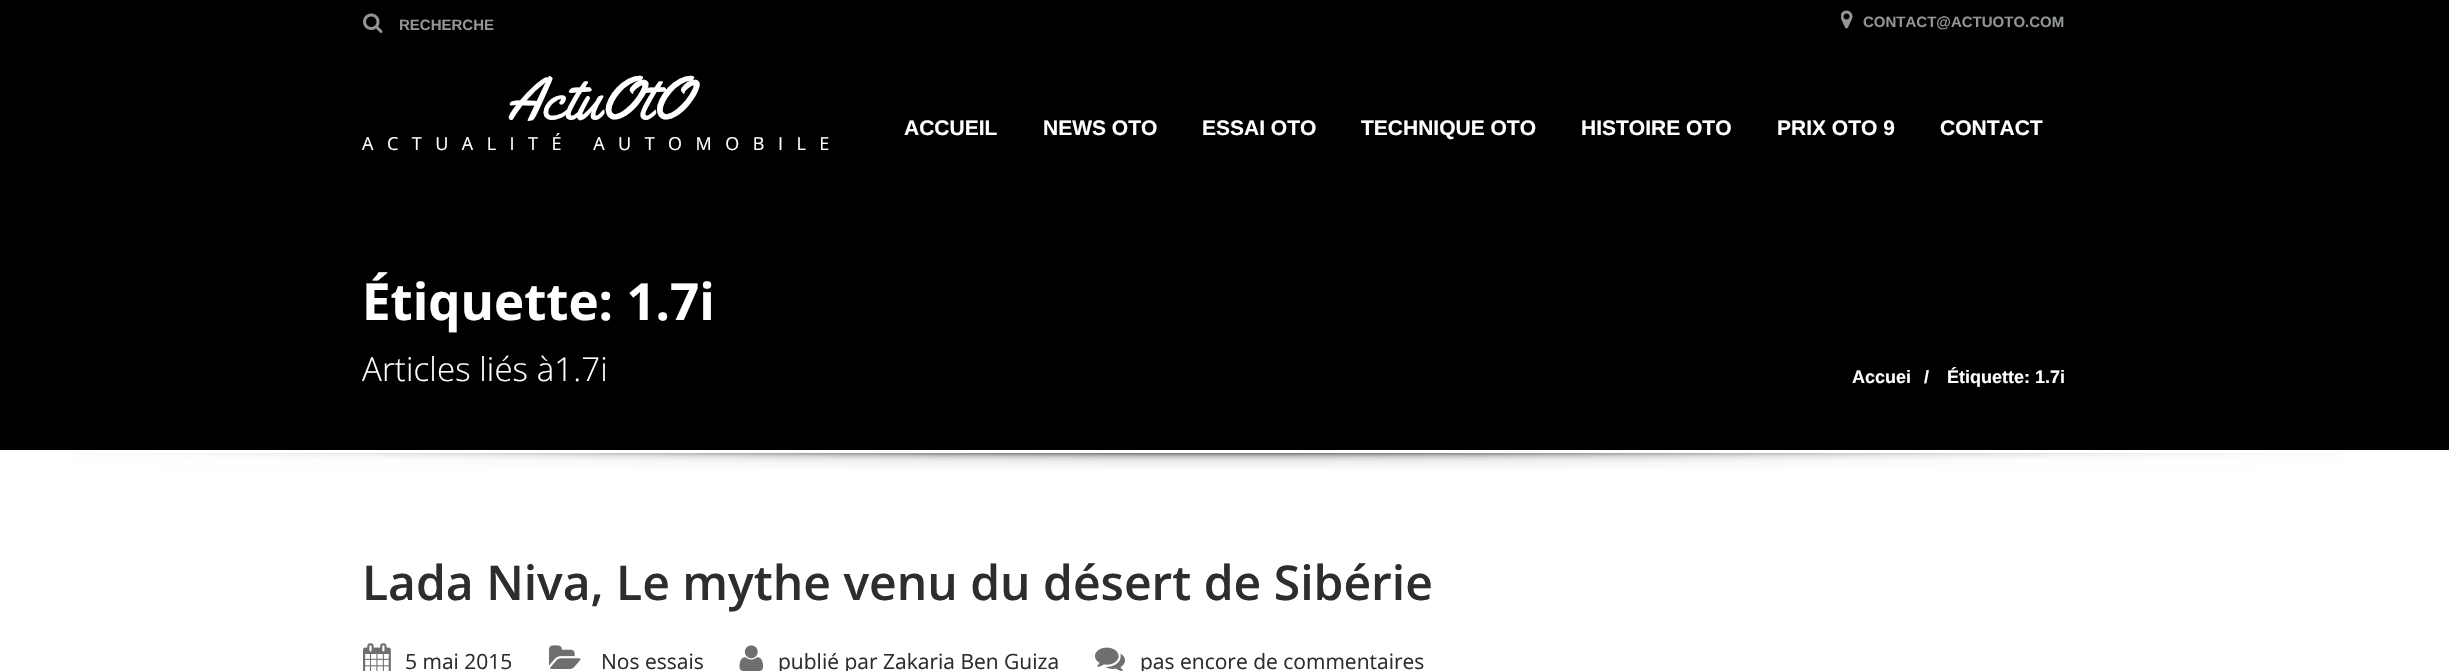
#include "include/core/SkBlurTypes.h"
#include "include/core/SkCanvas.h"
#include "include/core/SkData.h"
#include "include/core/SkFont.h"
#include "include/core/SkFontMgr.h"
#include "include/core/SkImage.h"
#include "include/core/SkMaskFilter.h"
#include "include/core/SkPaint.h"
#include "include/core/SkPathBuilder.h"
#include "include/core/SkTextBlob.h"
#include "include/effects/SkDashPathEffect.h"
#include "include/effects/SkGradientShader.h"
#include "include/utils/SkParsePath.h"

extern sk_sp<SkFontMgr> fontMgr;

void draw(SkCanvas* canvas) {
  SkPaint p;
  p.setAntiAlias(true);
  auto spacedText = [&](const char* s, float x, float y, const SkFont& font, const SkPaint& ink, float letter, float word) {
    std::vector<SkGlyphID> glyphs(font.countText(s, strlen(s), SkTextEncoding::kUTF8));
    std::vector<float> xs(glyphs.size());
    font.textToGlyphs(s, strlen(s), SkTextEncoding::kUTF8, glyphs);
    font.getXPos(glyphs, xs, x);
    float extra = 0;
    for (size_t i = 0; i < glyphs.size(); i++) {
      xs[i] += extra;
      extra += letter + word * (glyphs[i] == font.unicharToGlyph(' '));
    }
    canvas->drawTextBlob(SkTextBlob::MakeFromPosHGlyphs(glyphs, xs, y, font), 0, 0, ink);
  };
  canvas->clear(SK_ColorWHITE);
  p.setColor(SK_ColorBLACK);
  canvas->drawRect(SkRect::MakeLTRB(0, 0, 2449, 450), p);
  canvas->drawImageRect(SkImages::DeferredFromEncodedData(SkData::MakeFromFileName("images/1.png")), SkRect::MakeLTRB(363, 13, 383, 33), SkSamplingOptions());
  canvas->drawImageRect(SkImages::DeferredFromEncodedData(SkData::MakeFromFileName("images/2.png")), SkRect::MakeLTRB(1841, 10, 1853, 29), SkSamplingOptions());
  canvas->drawImageRect(SkImages::DeferredFromEncodedData(SkData::MakeFromFileName("images/3.png")), SkRect::MakeLTRB(75, 453, 2342, 470), SkSamplingOptions());
  canvas->drawImageRect(SkImages::DeferredFromEncodedData(SkData::MakeFromFileName("images/4.png")), SkRect::MakeLTRB(363, 643, 391, 671), SkSamplingOptions());
  canvas->drawImageRect(SkImages::DeferredFromEncodedData(SkData::MakeFromFileName("images/5.png")), SkRect::MakeLTRB(549, 645, 581, 669), SkSamplingOptions());
  canvas->drawImageRect(SkImages::DeferredFromEncodedData(SkData::MakeFromFileName("images/6.png")), SkRect::MakeLTRB(739, 645, 764, 671), SkSamplingOptions());
  canvas->drawImageRect(SkImages::DeferredFromEncodedData(SkData::MakeFromFileName("images/7.png")), SkRect::MakeLTRB(1095, 647, 1125, 671), SkSamplingOptions());
  SkFont font1(fontMgr->matchFamilyStyle("Liberation Sans", SkFontStyle::Bold()), 15);
  font1.setSubpixel(true);
  p.setColor(SkColorSetRGB(146, 149, 150));
  canvas->drawString("RECHERCHE", 399, 30, font1, p);
  canvas->drawString("CONTACT@ACTUOTO.COM", 1863, 27, font1, p);
  SkFont font2(fontMgr->matchFamilyStyle("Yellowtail", SkFontStyle::Normal()), 60);
  font2.setSubpixel(true);
  p.setColor(SK_ColorWHITE);
  canvas->drawString("ActuOtO", 507, 119, font2, p);
  SkFont font3(fontMgr->matchFamilyStyle("Open Sans", SkFontStyle::Normal()), 18);
  font3.setSubpixel(true);
  spacedText("ACTUALITÉ AUTOMOBILE", 362, 150, font3, p, 13.5f, 0);
  SkFont font4(fontMgr->matchFamilyStyle("Liberation Sans", SkFontStyle::Bold()), 21);
  font4.setSubpixel(true);
  canvas->drawString("ACCUEIL", 904, 135, font4, p);
  canvas->drawString("NEWS OTO", 1043, 135, font4, p);
  canvas->drawString("ESSAI OTO", 1202, 135, font4, p);
  canvas->drawString("TECHNIQUE OTO", 1361, 135, font4, p);
  canvas->drawString("HISTOIRE OTO", 1581, 135, font4, p);
  canvas->drawString("PRIX OTO 9", 1777, 135, font4, p);
  canvas->drawString("CONTACT", 1940, 135, font4, p);
  SkFont font5(fontMgr->matchFamilyStyle("Open Sans", SkFontStyle::Bold()), 51);
  font5.setSubpixel(true);
  canvas->drawString("Étiquette: 1.7i", 362, 320, font5, p);
  SkFont font6(fontMgr->matchFamilyStyle("Open Sans", SkFontStyle(300, SkFontStyle::kNormal_Width, SkFontStyle::kUpright_Slant)), 33);
  font6.setSubpixel(true);
  spacedText("Articles liés à1.7i", 362, 381, font6, p, 0.1f, 0);
  SkFont font7(fontMgr->matchFamilyStyle("Liberation Sans", SkFontStyle::Bold()), 18);
  font7.setSubpixel(true);
  canvas->drawString("Accuei", 1852, 383, font7, p);
  canvas->drawString("/", 1924, 383, font7, p);
  canvas->drawString("Étiquette: 1.7i", 1947, 383, font7, p);
  SkFont font8(fontMgr->matchFamilyStyle("Open Sans", SkFontStyle(600, SkFontStyle::kNormal_Width, SkFontStyle::kUpright_Slant)), 48);
  font8.setSubpixel(true);
  p.setColor(SkColorSetRGB(45, 45, 45));
  canvas->drawString("Lada Niva, Le mythe venu du désert de Sibérie", 362, 600, font8, p);
  SkFont font9(fontMgr->matchFamilyStyle("Open Sans", SkFontStyle::Normal()), 21);
  font9.setSubpixel(true);
  canvas->drawString("5 mai 2015", 405, 669, font9, p);
  canvas->drawString("Nos essais", 601, 669, font9, p);
  canvas->drawString("publié par", 778, 669, font9, p);
  canvas->drawString("Zakaria Ben Guiza", 883, 669, font9, p);
  canvas->drawString("pas encore de commentaires", 1140, 669, font9, p);
}
